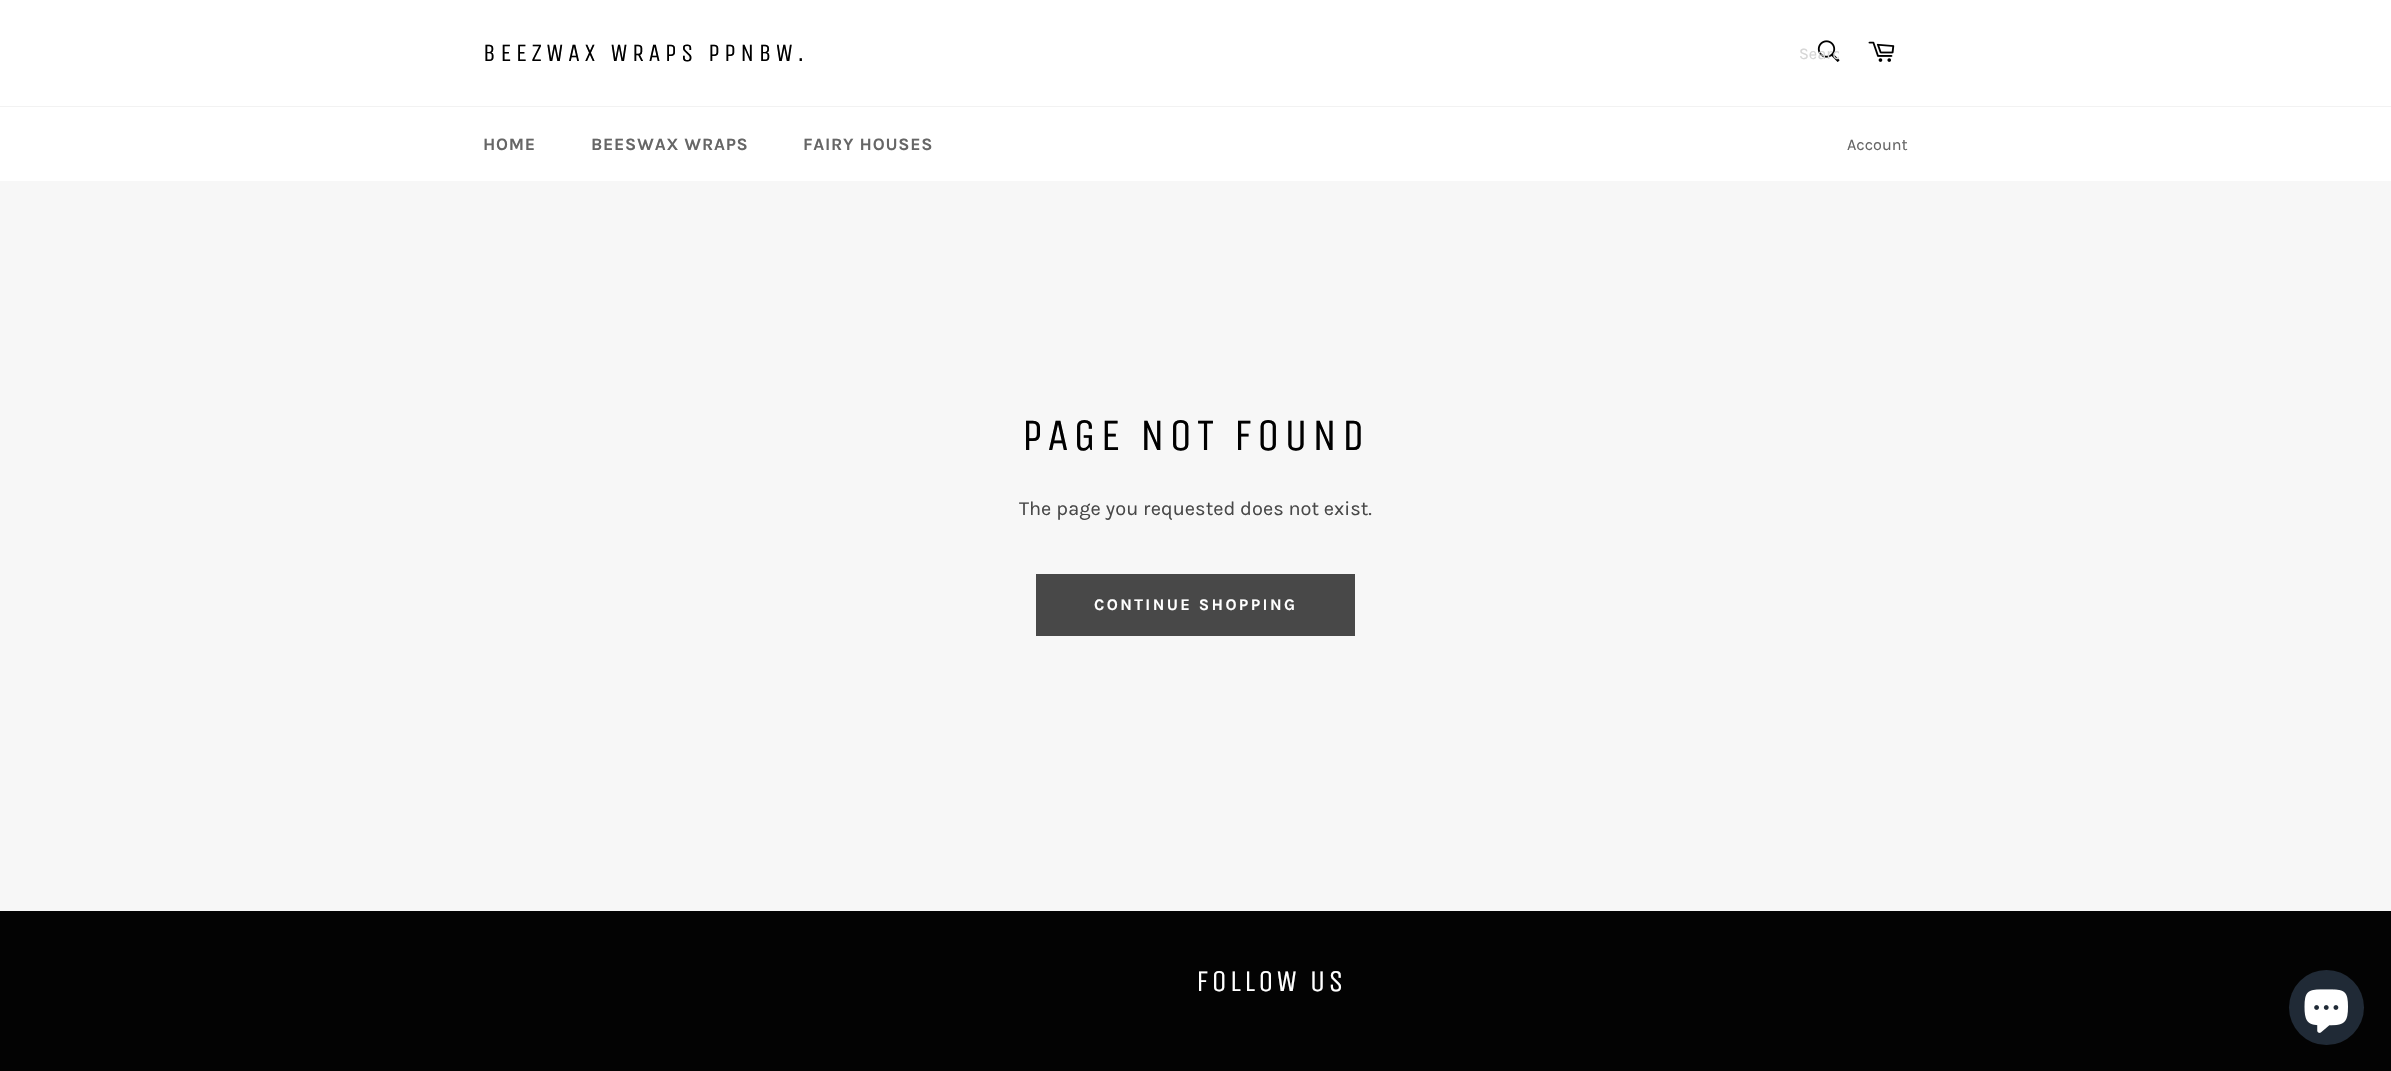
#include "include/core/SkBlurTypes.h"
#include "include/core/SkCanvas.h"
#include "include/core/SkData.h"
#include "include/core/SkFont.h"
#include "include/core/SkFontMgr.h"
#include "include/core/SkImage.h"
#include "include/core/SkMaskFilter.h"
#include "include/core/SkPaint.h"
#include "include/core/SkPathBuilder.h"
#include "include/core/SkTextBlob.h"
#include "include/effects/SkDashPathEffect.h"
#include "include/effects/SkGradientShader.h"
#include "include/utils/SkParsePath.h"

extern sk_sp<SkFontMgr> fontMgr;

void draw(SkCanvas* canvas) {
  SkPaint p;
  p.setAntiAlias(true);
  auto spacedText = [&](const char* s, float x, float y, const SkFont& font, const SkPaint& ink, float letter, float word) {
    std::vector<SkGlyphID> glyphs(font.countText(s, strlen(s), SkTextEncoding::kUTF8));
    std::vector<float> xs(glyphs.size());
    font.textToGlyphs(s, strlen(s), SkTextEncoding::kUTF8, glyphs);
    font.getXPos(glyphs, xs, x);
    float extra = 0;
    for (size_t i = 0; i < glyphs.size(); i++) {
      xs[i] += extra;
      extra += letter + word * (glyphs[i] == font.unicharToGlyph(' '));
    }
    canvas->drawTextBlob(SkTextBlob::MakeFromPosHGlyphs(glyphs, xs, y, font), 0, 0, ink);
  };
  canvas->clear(SkColorSetRGB(247, 247, 247));
  p.setColor(SK_ColorWHITE);
  canvas->drawRect(SkRect::MakeLTRB(0, 0, 2391, 106), p);
  canvas->drawImageRect(SkImages::DeferredFromEncodedData(SkData::MakeFromFileName("images/1.png")), SkRect::MakeLTRB(1817, 40, 1840, 62), SkSamplingOptions());
  canvas->drawImageRect(SkImages::DeferredFromEncodedData(SkData::MakeFromFileName("images/2.png")), SkRect::MakeLTRB(1868, 41, 1895, 62), SkSamplingOptions());
  canvas->drawRect(SkRect::MakeLTRB(0, 107, 2391, 181), p);
  p.setColor(SkColorSetRGB(242, 242, 242));
  canvas->drawRect(SkRect::MakeLTRB(0, 106, 2391, 107), p);
  p.setColor(SkColorSetRGB(72, 72, 72));
  canvas->drawRect(SkRect::MakeLTRB(1036, 574, 1355, 636), p);
  p.setColor(SkColorSetRGB(3, 3, 3));
  canvas->drawRect(SkRect::MakeLTRB(0, 911, 2391, 1071), p);
  p.setColor(SkColorSetRGB(32, 42, 54));
  canvas->drawCircle(2326.5f, 1007.5f, 37.5f, p);
  canvas->drawImageRect(SkImages::DeferredFromEncodedData(SkData::MakeFromFileName("images/3.png")), SkRect::MakeLTRB(2304, 989, 2348, 1033), SkSamplingOptions());
  SkFont font1(fontMgr->matchFamilyStyle("Unica One", SkFontStyle::Normal()), 25);
  font1.setSubpixel(true);
  p.setColor(SK_ColorBLACK);
  spacedText("BEEZWAX WRAPS PPNBW.", 483, 61, font1, p, 4.5f, 0);
  canvas->save();
  canvas->clipRect(SkRect::MakeLTRB(1799, 44, 1839, 63));
  SkFont font2(fontMgr->matchFamilyStyle("Karla", SkFontStyle::Normal()), 16.25f);
  font2.setSubpixel(true);
  p.setColor(SkColorSetRGB(214, 214, 214));
  canvas->drawString("Searc", 1799, 59, font2, p);
  canvas->restore();
  SkFont font3(fontMgr->matchFamilyStyle("Karla", SkFontStyle::Bold()), 17.5f);
  font3.setSubpixel(true);
  p.setColor(SkColorSetRGB(102, 102, 102));
  spacedText("HOME", 483, 150, font3, p, 0.75f, 0);
  spacedText("BEESWAX WRAPS", 591, 150, font3, p, 0.75f, 0);
  spacedText("FAIRY HOUSES", 803, 150, font3, p, 0.75f, 0);
  canvas->drawString("Account", 1847, 150, font2, p);
  SkFont font4(fontMgr->matchFamilyStyle("Unica One", SkFontStyle::Normal()), 45);
  font4.setSubpixel(true);
  p.setColor(SK_ColorBLACK);
  spacedText("PAGE NOT FOUND", 1022, 450, font4, p, 4.5f, 0);
  SkFont font5(fontMgr->matchFamilyStyle("Karla", SkFontStyle::Normal()), 20);
  font5.setSubpixel(true);
  p.setColor(SkColorSetRGB(72, 72, 72));
  canvas->drawString("The page you requested does not exist.", 1019, 515, font5, p);
  SkFont font6(fontMgr->matchFamilyStyle("Karla", SkFontStyle::Bold()), 16.25f);
  font6.setSubpixel(true);
  p.setColor(SK_ColorWHITE);
  spacedText("CONTINUE SHOPPING", 1094, 610, font6, p, 2.4f, 0);
  SkFont font7(fontMgr->matchFamilyStyle("Unica One", SkFontStyle::Normal()), 30);
  font7.setSubpixel(true);
  spacedText("FOLLOW US", 1196, 991, font7, p, 3, 0);
}
